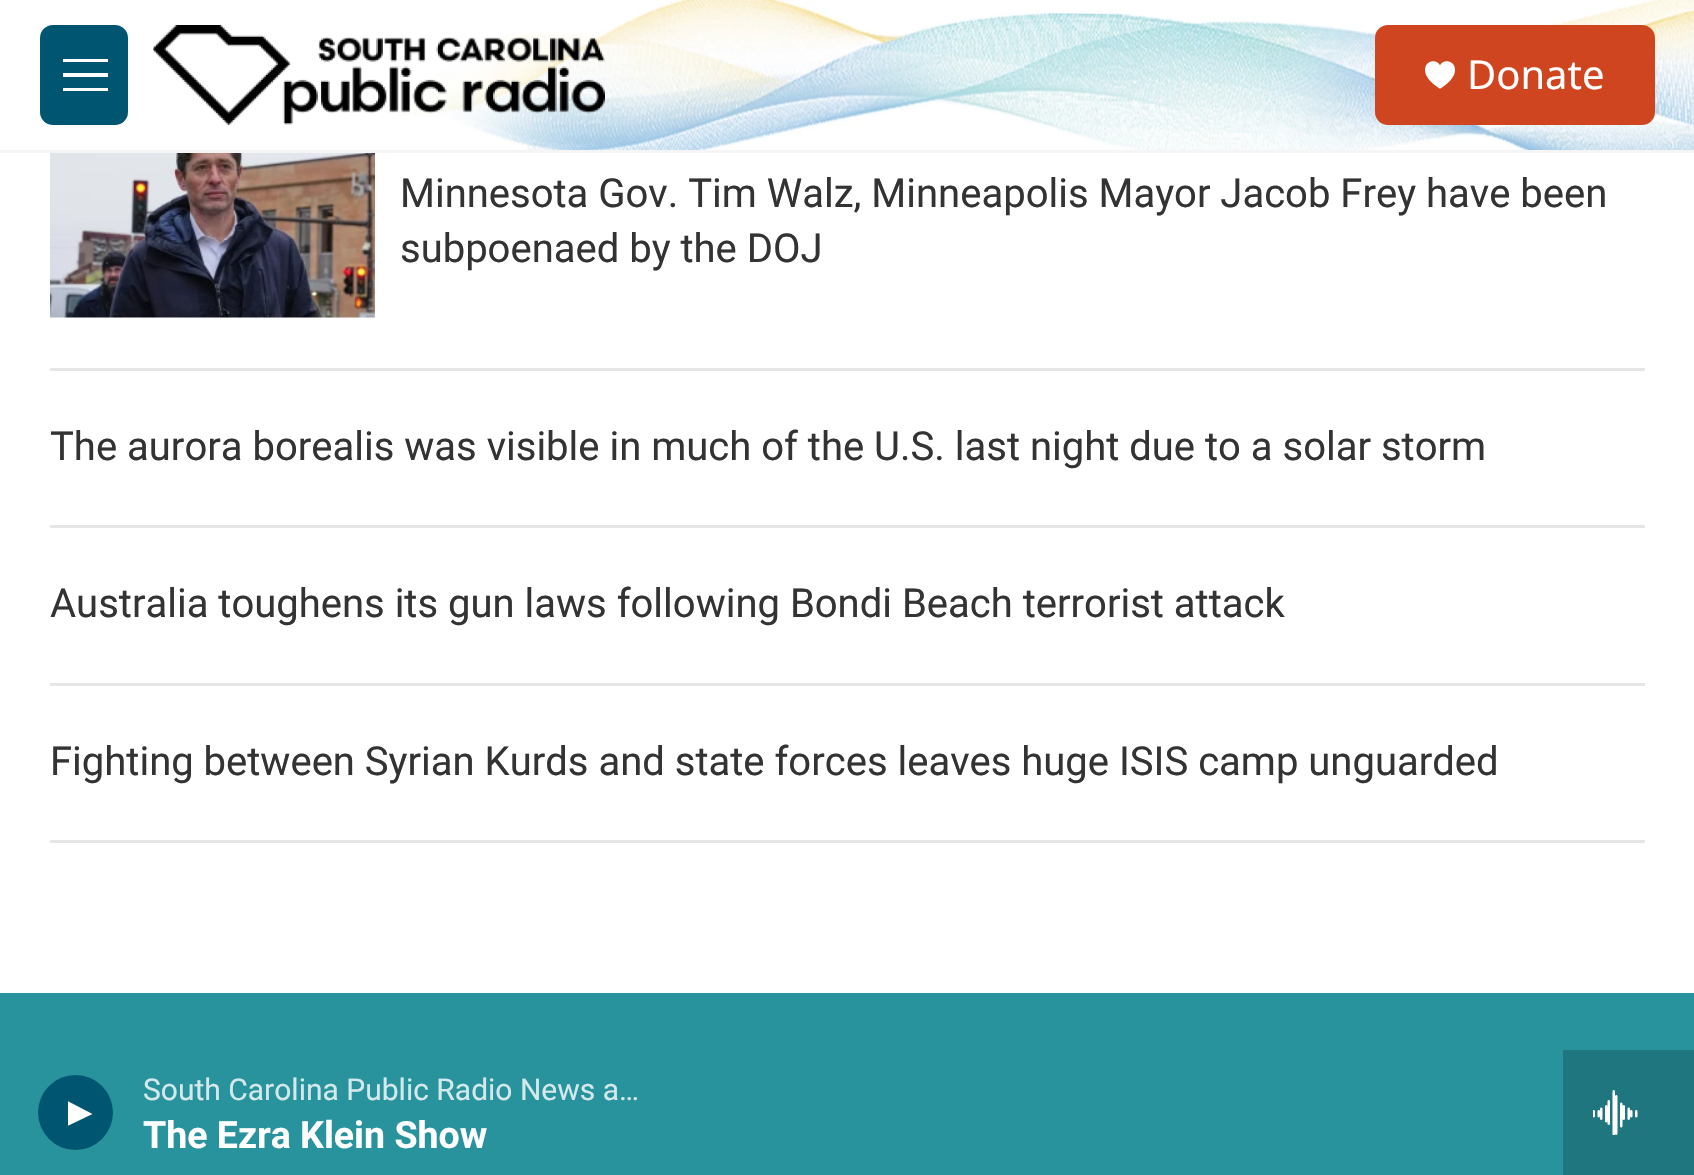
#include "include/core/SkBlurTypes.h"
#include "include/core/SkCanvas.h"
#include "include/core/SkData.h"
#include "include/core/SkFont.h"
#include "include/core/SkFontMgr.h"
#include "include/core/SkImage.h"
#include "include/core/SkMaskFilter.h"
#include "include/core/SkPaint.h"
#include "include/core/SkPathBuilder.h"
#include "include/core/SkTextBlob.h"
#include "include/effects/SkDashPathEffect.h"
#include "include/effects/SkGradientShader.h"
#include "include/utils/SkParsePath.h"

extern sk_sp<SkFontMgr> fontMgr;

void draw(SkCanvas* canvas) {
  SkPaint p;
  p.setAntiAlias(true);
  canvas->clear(SK_ColorWHITE);
  p.setColor(SkColorSetRGB(245, 245, 245));
  canvas->drawRect(SkRect::MakeLTRB(0, 150, 1694, 153), p);
  canvas->drawImageRect(SkImages::DeferredFromEncodedData(SkData::MakeFromFileName("images/1.png")), SkRect::MakeLTRB(402, 0, 1694, 150), SkSamplingOptions());
  p.setColor(SkColorSetRGB(0, 86, 112));
  canvas->drawRoundRect(SkRect::MakeLTRB(40, 25, 128, 125), 13, 13, p);
  canvas->save();
  canvas->clipRect(SkRect::MakeLTRB(63, 53, 108, 98));
  p.setColor(SK_ColorWHITE);
  canvas->drawPath(SkPathBuilder(SkPathFillType::kEvenOdd).moveTo(62, 77).lineTo(62, 73).lineTo(108, 73).lineTo(108, 77).close().moveTo(62, 62).lineTo(62, 59).lineTo(108, 59).lineTo(108, 62).close().moveTo(62, 91).lineTo(62, 88).lineTo(108, 88).lineTo(108, 91).close().detach(), p);
  canvas->restore();
  canvas->drawImageRect(SkImages::DeferredFromEncodedData(SkData::MakeFromFileName("images/2.png")), SkRect::MakeLTRB(153, 25, 605, 125), SkSamplingOptions());
  p.setColor(SkColorSetRGB(207, 69, 32));
  canvas->drawRoundRect(SkRect::MakeLTRB(1375, 25, 1655, 125), 13, 13, p);
  canvas->drawImageRect(SkImages::DeferredFromEncodedData(SkData::MakeFromFileName("images/3.png")), SkRect::MakeLTRB(1425, 61, 1455, 89), SkSamplingOptions());
  p.setColor(SkColorSetRGB(40, 147, 157));
  canvas->drawRect(SkRect::MakeLTRB(0, 1050, 1563, 1175), p);
  p.setColor(SkColorSetRGB(0, 86, 112));
  canvas->drawCircle(75.5f, 1112.5f, 37.5f, p);
  canvas->save();
  canvas->clipRect(SkRect::MakeLTRB(68, 1100, 93, 1128));
  p.setColor(SK_ColorWHITE);
  canvas->drawPath(SkPathBuilder().moveTo(67.5f, 1101).lineTo(92.5f, 1114).lineTo(67.5f, 1126).close().detach(), p);
  canvas->restore();
  p.setColor(SkColorSetRGB(32, 118, 126));
  canvas->drawRect(SkRect::MakeLTRB(1563, 1050, 1694, 1175), p);
  canvas->drawImageRect(SkImages::DeferredFromEncodedData(SkData::MakeFromFileName("images/4.png")), SkRect::MakeLTRB(1593, 1090, 1638, 1135), SkSamplingOptions());
  p.setColor(SkColorSetRGB(230, 230, 230));
  canvas->drawRect(SkRect::MakeLTRB(50, 368, 1645, 371), p);
  canvas->drawImageRect(SkImages::DeferredFromEncodedData(SkData::MakeFromFileName("images/5.png")), SkRect::MakeLTRB(50, 153, 375, 318), SkSamplingOptions());
  canvas->drawRect(SkRect::MakeLTRB(50, 525, 1645, 528), p);
  canvas->drawRect(SkRect::MakeLTRB(50, 683, 1645, 686), p);
  canvas->drawRect(SkRect::MakeLTRB(50, 840, 1645, 843), p);
  p.setColor(SkColorSetRGB(40, 147, 157));
  canvas->drawRect(SkRect::MakeLTRB(0, 993, 1694, 1050), p);
  SkFont font1(fontMgr->matchFamilyStyle("Noto Sans", SkFontStyle::Normal()), 40);
  font1.setSubpixel(true);
  p.setColor(SK_ColorWHITE);
  canvas->drawString("Donate", 1467, 89, font1, p);
  SkFont font2(fontMgr->matchFamilyStyle("Roboto", SkFontStyle::Normal()), 30);
  font2.setSubpixel(true);
  p.setColor(SkColorSetRGB(212, 233, 235));
  canvas->drawString("South Carolina Public Radio News a…", 143, 1100, font2, p);
  SkFont font3(fontMgr->matchFamilyStyle("Roboto", SkFontStyle::Bold()), 37.5f);
  font3.setSubpixel(true);
  p.setColor(SK_ColorWHITE);
  canvas->drawString("The Ezra Klein Show", 143, 1148, font3, p);
  SkFont font4(fontMgr->matchFamilyStyle("Roboto", SkFontStyle::Normal()), 40);
  font4.setSubpixel(true);
  p.setColor(SkColorSetRGB(51, 51, 51));
  canvas->drawString("Minnesota Gov. Tim Walz, Minneapolis Mayor Jacob Frey have been", 400, 207, font4, p);
  canvas->drawString("subpoenaed by the DOJ", 400, 262, font4, p);
  canvas->drawString("The aurora borealis was visible in much of the U.S. last night due to a solar storm", 50, 460, font4, p);
  canvas->drawString("Australia toughens its gun laws following Bondi Beach terrorist attack", 50, 617, font4, p);
  canvas->drawString("Fighting between Syrian Kurds and state forces leaves huge ISIS camp unguarded", 50, 775, font4, p);
}
